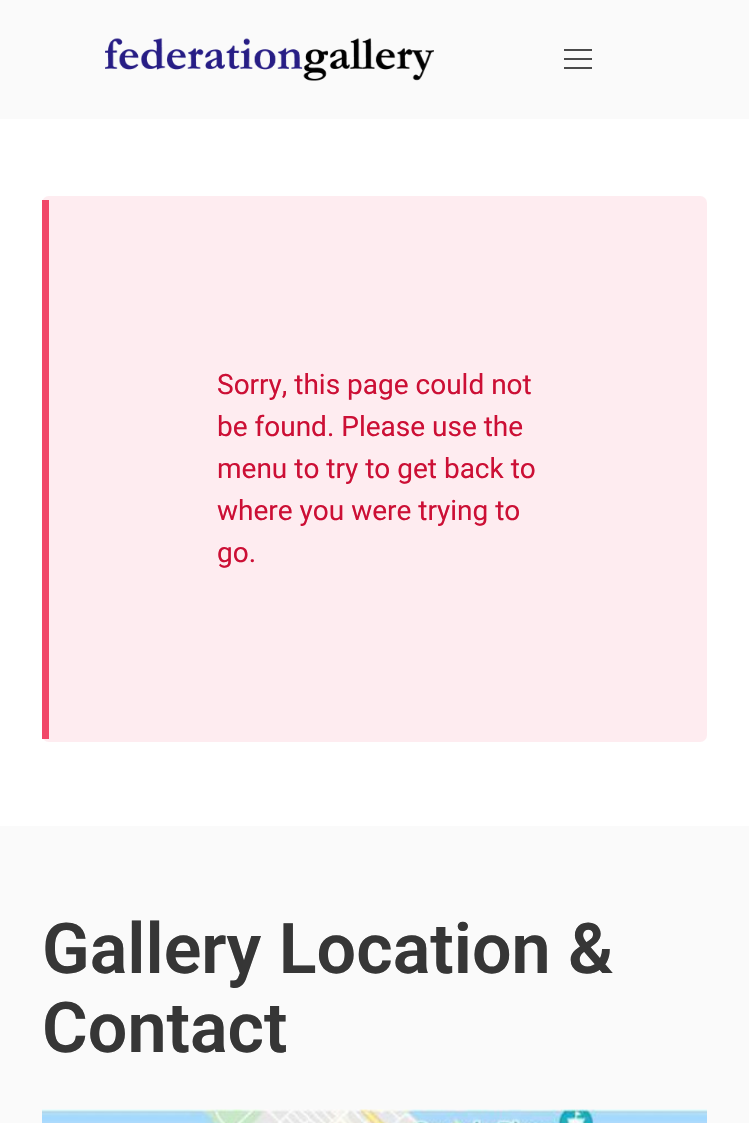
#include "include/core/SkBlurTypes.h"
#include "include/core/SkCanvas.h"
#include "include/core/SkData.h"
#include "include/core/SkFont.h"
#include "include/core/SkFontMgr.h"
#include "include/core/SkImage.h"
#include "include/core/SkMaskFilter.h"
#include "include/core/SkPaint.h"
#include "include/core/SkPathBuilder.h"
#include "include/core/SkTextBlob.h"
#include "include/effects/SkDashPathEffect.h"
#include "include/effects/SkGradientShader.h"
#include "include/utils/SkParsePath.h"

extern sk_sp<SkFontMgr> fontMgr;

void draw(SkCanvas* canvas) {
  SkPaint p;
  p.setAntiAlias(true);
  canvas->clear(SK_ColorWHITE);
  p.setColor(SkColorSetRGB(250, 250, 250));
  canvas->drawRect(SkRect::MakeLTRB(0, 0, 749, 119), p);
  canvas->drawImageRect(SkImages::DeferredFromEncodedData(SkData::MakeFromFileName("images/1.png")), SkRect::MakeLTRB(105, 38, 434, 81), SkSamplingOptions());
  p.setColor(SkColorSetRGB(74, 74, 74));
  canvas->drawRect(SkRect::MakeLTRB(564, 49, 592, 51), p);
  canvas->drawRect(SkRect::MakeLTRB(564, 58, 592, 60), p);
  canvas->drawRect(SkRect::MakeLTRB(564, 67, 592, 69), p);
  p.setColor(SkColorSetRGB(254, 236, 240));
  canvas->drawRoundRect(SkRect::MakeLTRB(42, 196, 707, 742), 7, 7, p);
  p.setColor(SkColorSetRGB(241, 70, 104));
  canvas->drawRect(SkRect::MakeLTRB(42, 200, 49, 739), p);
  p.setColor(SkColorSetRGB(250, 250, 250));
  canvas->drawRect(SkRect::MakeLTRB(0, 826, 749, 1123), p);
  canvas->drawImageRect(SkImages::DeferredFromEncodedData(SkData::MakeFromFileName("images/2.png")), SkRect::MakeLTRB(42, 1109, 707, 1123), SkSamplingOptions());
  SkFont font1(fontMgr->matchFamilyStyle("Roboto", SkFontStyle::Normal()), 28);
  font1.setSubpixel(true);
  p.setColor(SkColorSetRGB(204, 15, 53));
  canvas->drawString("Sorry, this page could not", 217, 394, font1, p);
  canvas->drawString("be found. Please use the", 217, 436, font1, p);
  canvas->drawString("menu to try to get back to", 217, 478, font1, p);
  canvas->drawString("where you were trying to", 217, 520, font1, p);
  canvas->drawString("go.", 217, 562, font1, p);
  SkFont font2(fontMgr->matchFamilyStyle("Roboto", SkFontStyle(600, SkFontStyle::kNormal_Width, SkFontStyle::kUpright_Slant)), 70);
  font2.setSubpixel(true);
  p.setColor(SkColorSetRGB(54, 54, 54));
  canvas->drawString("Gallery Location &", 42, 973, font2, p);
  canvas->drawString("Contact", 42, 1052, font2, p);
}
